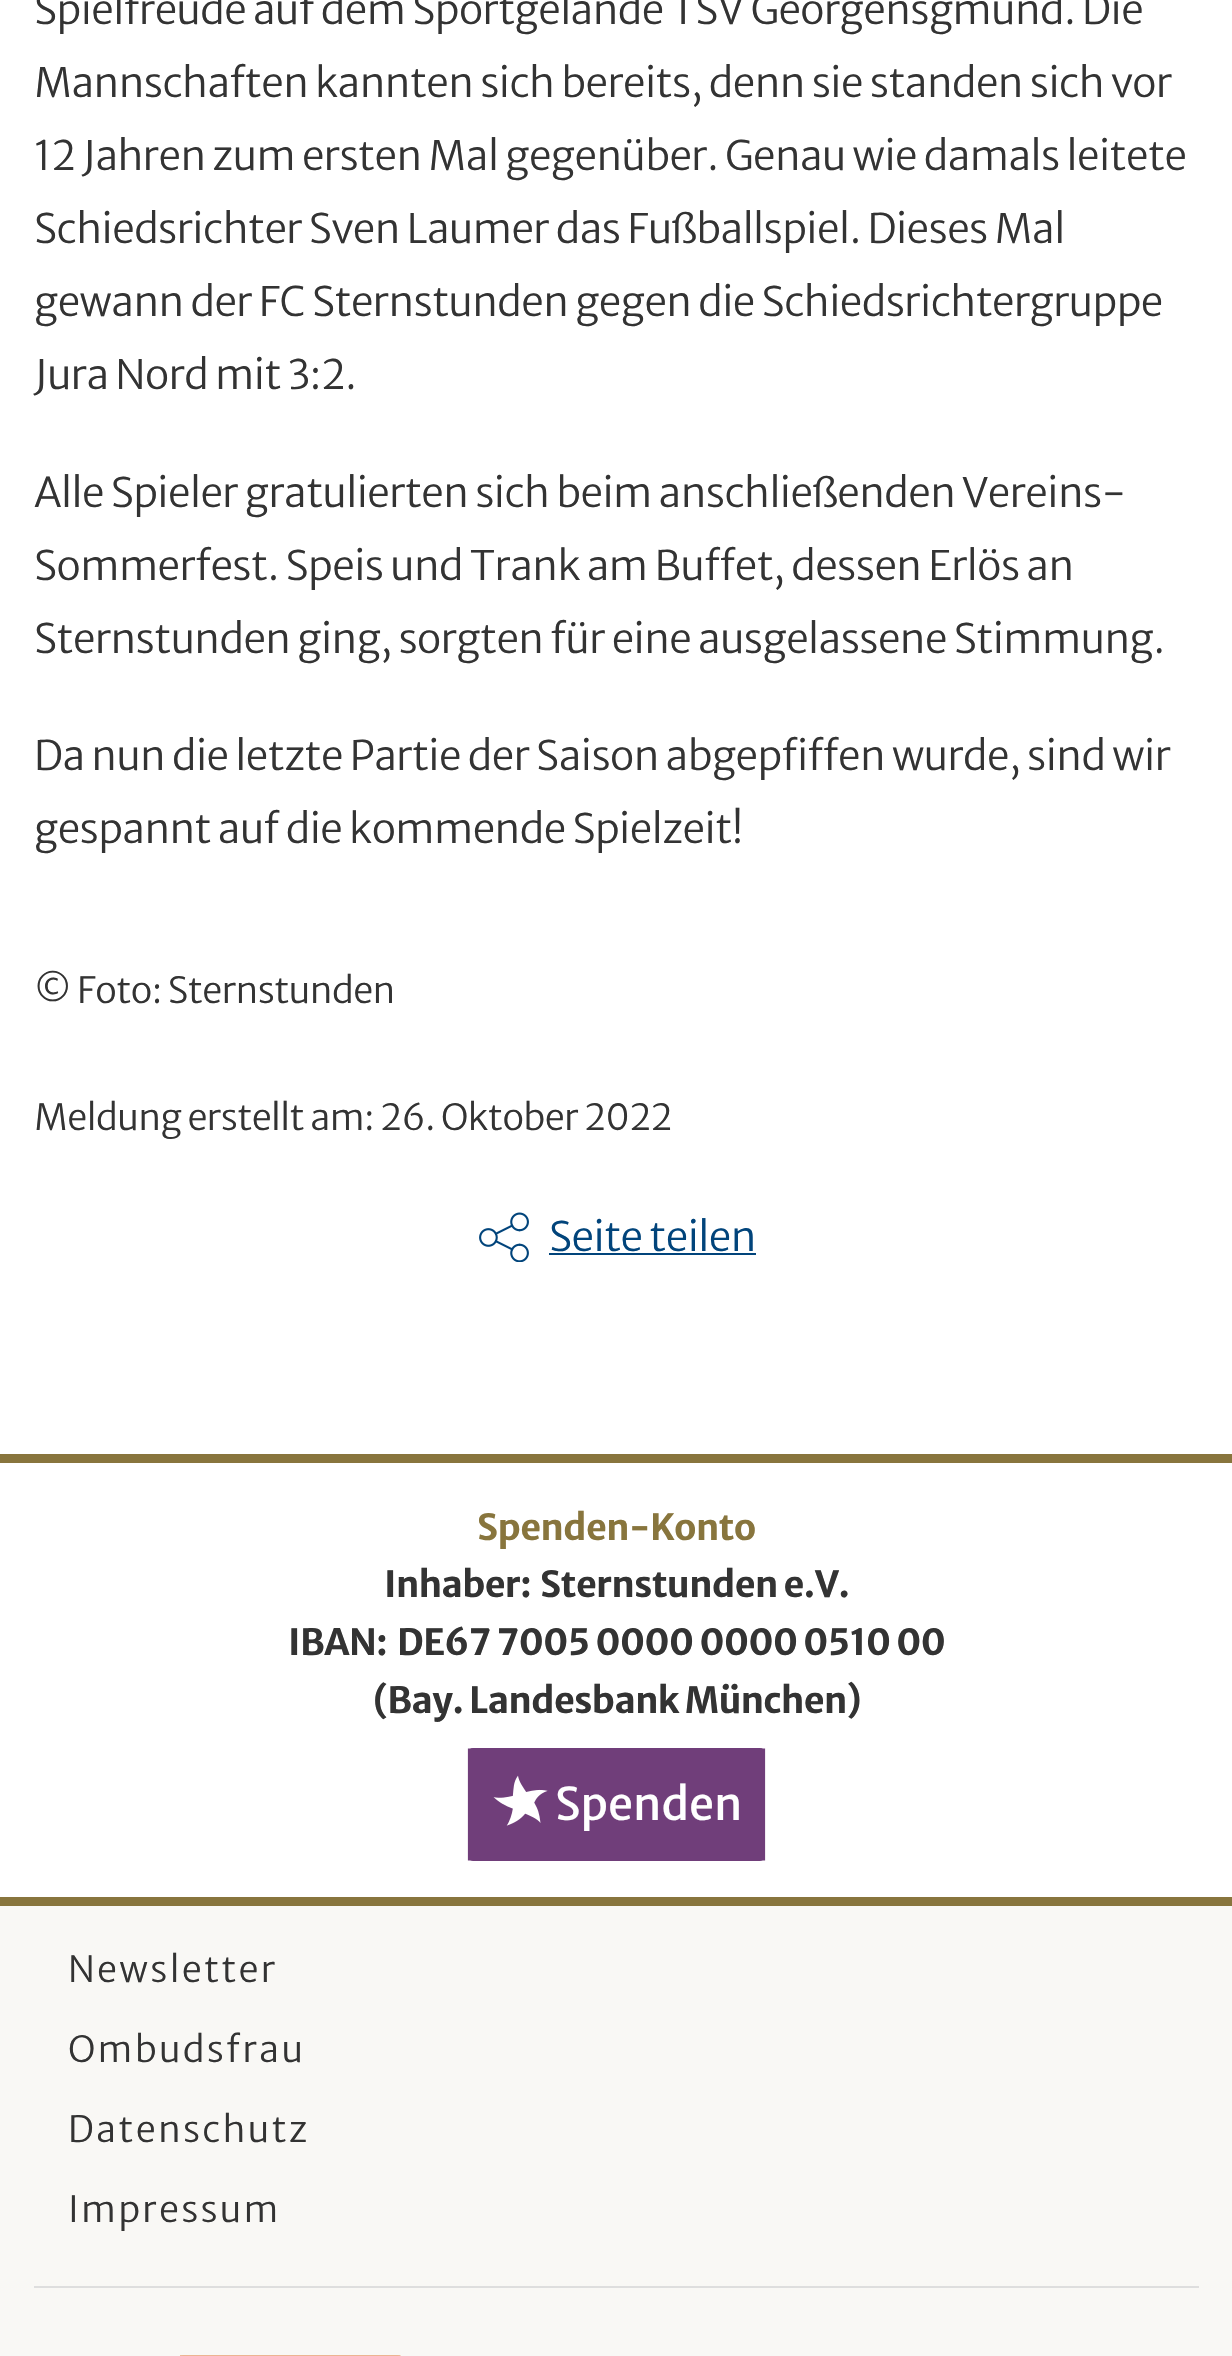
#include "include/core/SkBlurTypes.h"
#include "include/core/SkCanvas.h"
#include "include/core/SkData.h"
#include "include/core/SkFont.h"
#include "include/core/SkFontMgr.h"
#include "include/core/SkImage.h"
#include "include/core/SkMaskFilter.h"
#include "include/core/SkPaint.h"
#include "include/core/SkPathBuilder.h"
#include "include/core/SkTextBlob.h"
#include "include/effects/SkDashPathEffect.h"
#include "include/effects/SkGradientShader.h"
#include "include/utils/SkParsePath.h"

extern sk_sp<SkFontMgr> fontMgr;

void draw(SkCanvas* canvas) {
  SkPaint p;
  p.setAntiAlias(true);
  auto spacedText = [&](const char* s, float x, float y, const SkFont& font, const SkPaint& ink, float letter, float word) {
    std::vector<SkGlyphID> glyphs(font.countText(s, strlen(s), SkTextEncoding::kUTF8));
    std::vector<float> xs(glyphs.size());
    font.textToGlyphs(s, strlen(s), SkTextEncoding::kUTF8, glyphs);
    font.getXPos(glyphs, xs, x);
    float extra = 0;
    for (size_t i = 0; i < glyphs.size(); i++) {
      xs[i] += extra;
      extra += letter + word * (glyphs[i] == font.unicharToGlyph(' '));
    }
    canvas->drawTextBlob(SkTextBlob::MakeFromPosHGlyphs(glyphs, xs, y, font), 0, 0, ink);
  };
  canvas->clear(SK_ColorWHITE);
  canvas->drawImageRect(SkImages::DeferredFromEncodedData(SkData::MakeFromFileName("images/1.png")), SkRect::MakeLTRB(479, 1212, 529, 1262), SkSamplingOptions());
  p.setColor(SkColorSetRGB(1, 68, 123));
  canvas->drawRect(SkRect::MakeLTRB(549, 1253, 756, 1255), p);
  p.setColor(SkColorSetRGB(136, 117, 61));
  canvas->drawRect(SkRect::MakeLTRB(0, 1454, 1232, 1463), p);
  canvas->drawRect(SkRect::MakeLTRB(0, 1897, 1232, 1906), p);
  p.setColor(SkColorSetRGB(112, 62, 122));
  canvas->drawRoundRect(SkRect::MakeLTRB(468, 1748, 765, 1861), 5, 5, p);
  p.setStyle(SkPaint::kStroke_Style);
  p.setStrokeWidth(11.2f);
  canvas->drawPath(SkPathBuilder().moveTo(473.5f, 1754).lineTo(759.5f, 1754).lineTo(759.5f, 1855).lineTo(473.5f, 1855).close().detach(), p);
  canvas->drawImageRect(SkImages::DeferredFromEncodedData(SkData::MakeFromFileName("images/2.png")), SkRect::MakeLTRB(493, 1775, 548, 1826), SkSamplingOptions());
  p.setStyle(SkPaint::kFill_Style);
  p.setColor(SkColorSetRGB(249, 248, 245));
  canvas->drawRect(SkRect::MakeLTRB(0, 1906, 1232, 2356), p);
  p.setColor(SkColorSetRGB(222, 222, 222));
  canvas->drawRect(SkRect::MakeLTRB(34, 2286, 1199, 2288), p);
  canvas->drawImageRect(SkImages::DeferredFromEncodedData(SkData::MakeFromFileName("images/3.png")), SkRect::MakeLTRB(180, 2355, 401, 2356), SkSamplingOptions());
  SkFont font1(fontMgr->matchFamilyStyle("Merriweather Sans", SkFontStyle(300, SkFontStyle::kNormal_Width, SkFontStyle::kUpright_Slant)), 40.5f);
  font1.setSubpixel(true);
  p.setColor(SkColorSetRGB(51, 51, 51));
  spacedText("Spielfreude auf dem Sportgelände TSV Georgensgmünd. Die", 34, 24, font1, p, -0.55f, 0);
  spacedText("Mannschaften kannten sich bereits, denn sie standen sich vor", 34, 97, font1, p, -0.55f, 0);
  spacedText("12 Jahren zum ersten Mal gegenüber. Genau wie damals leitete", 34, 170, font1, p, -0.55f, 0);
  spacedText("Schiedsrichter Sven Laumer das Fußballspiel. Dieses Mal", 34, 243, font1, p, -0.55f, 0);
  spacedText("gewann der FC Sternstunden gegen die Schiedsrichtergruppe", 34, 316, font1, p, -0.55f, 0);
  spacedText("Jura Nord mit 3:2.", 34, 389, font1, p, -0.55f, 0);
  spacedText("Alle Spieler gratulierten sich beim anschließenden Vereins-", 34, 507, font1, p, -0.55f, 0);
  spacedText("Sommerfest. Speis und Trank am Buffet, dessen Erlös an", 34, 580, font1, p, -0.55f, 0);
  spacedText("Sternstunden ging, sorgten für eine ausgelassene Stimmung.", 34, 653, font1, p, -0.55f, 0);
  spacedText("Da nun die letzte Partie der Saison abgepfiffen wurde, sind wir", 34, 770, font1, p, -0.55f, 0);
  spacedText("gespannt auf die kommende Spielzeit!", 34, 843, font1, p, -0.55f, 0);
  SkFont font2(fontMgr->matchFamilyStyle("Merriweather Sans", SkFontStyle(300, SkFontStyle::kNormal_Width, SkFontStyle::kUpright_Slant)), 36);
  font2.setSubpixel(true);
  spacedText("© Foto: Sternstunden", 34, 1003, font2, p, -0.55f, 0);
  spacedText("Meldung erstellt am: 26. Oktober 2022", 34, 1130, font2, p, -0.55f, 0);
  p.setColor(SkColorSetRGB(1, 68, 123));
  spacedText("Seite teilen", 549, 1251, font1, p, -0.55f, 0);
  SkFont font3(fontMgr->matchFamilyStyle("Merriweather Sans", SkFontStyle::Bold()), 36);
  font3.setSubpixel(true);
  p.setColor(SkColorSetRGB(136, 117, 61));
  spacedText("Spenden-Konto", 477, 1540, font3, p, -0.55f, 0);
  p.setColor(SkColorSetRGB(51, 51, 51));
  spacedText("Inhaber:", 384, 1597, font3, p, -0.55f, 0);
  spacedText("Sternstunden e.V.", 540, 1597, font3, p, -0.55f, 0);
  spacedText("IBAN:", 288, 1655, font3, p, -0.55f, 0);
  spacedText("DE67 7005 0000 0000 0510 00", 397, 1655, font3, p, -0.55f, 0);
  spacedText("(Bay. Landesbank München)", 373, 1713, font3, p, -0.55f, 0);
  SkFont font4(fontMgr->matchFamilyStyle("Merriweather Sans", SkFontStyle::Normal()), 45);
  font4.setSubpixel(true);
  p.setColor(SK_ColorWHITE);
  canvas->drawString("Spenden", 555, 1820, font4, p);
  p.setColor(SkColorSetRGB(51, 51, 51));
  spacedText("Newsletter", 68, 1982, font2, p, 2.25f, 0);
  spacedText("Ombudsfrau", 68, 2062, font2, p, 2.25f, 0);
  spacedText("Datenschutz", 68, 2142, font2, p, 2.25f, 0);
  spacedText("Impressum", 68, 2222, font2, p, 2.25f, 0);
}
